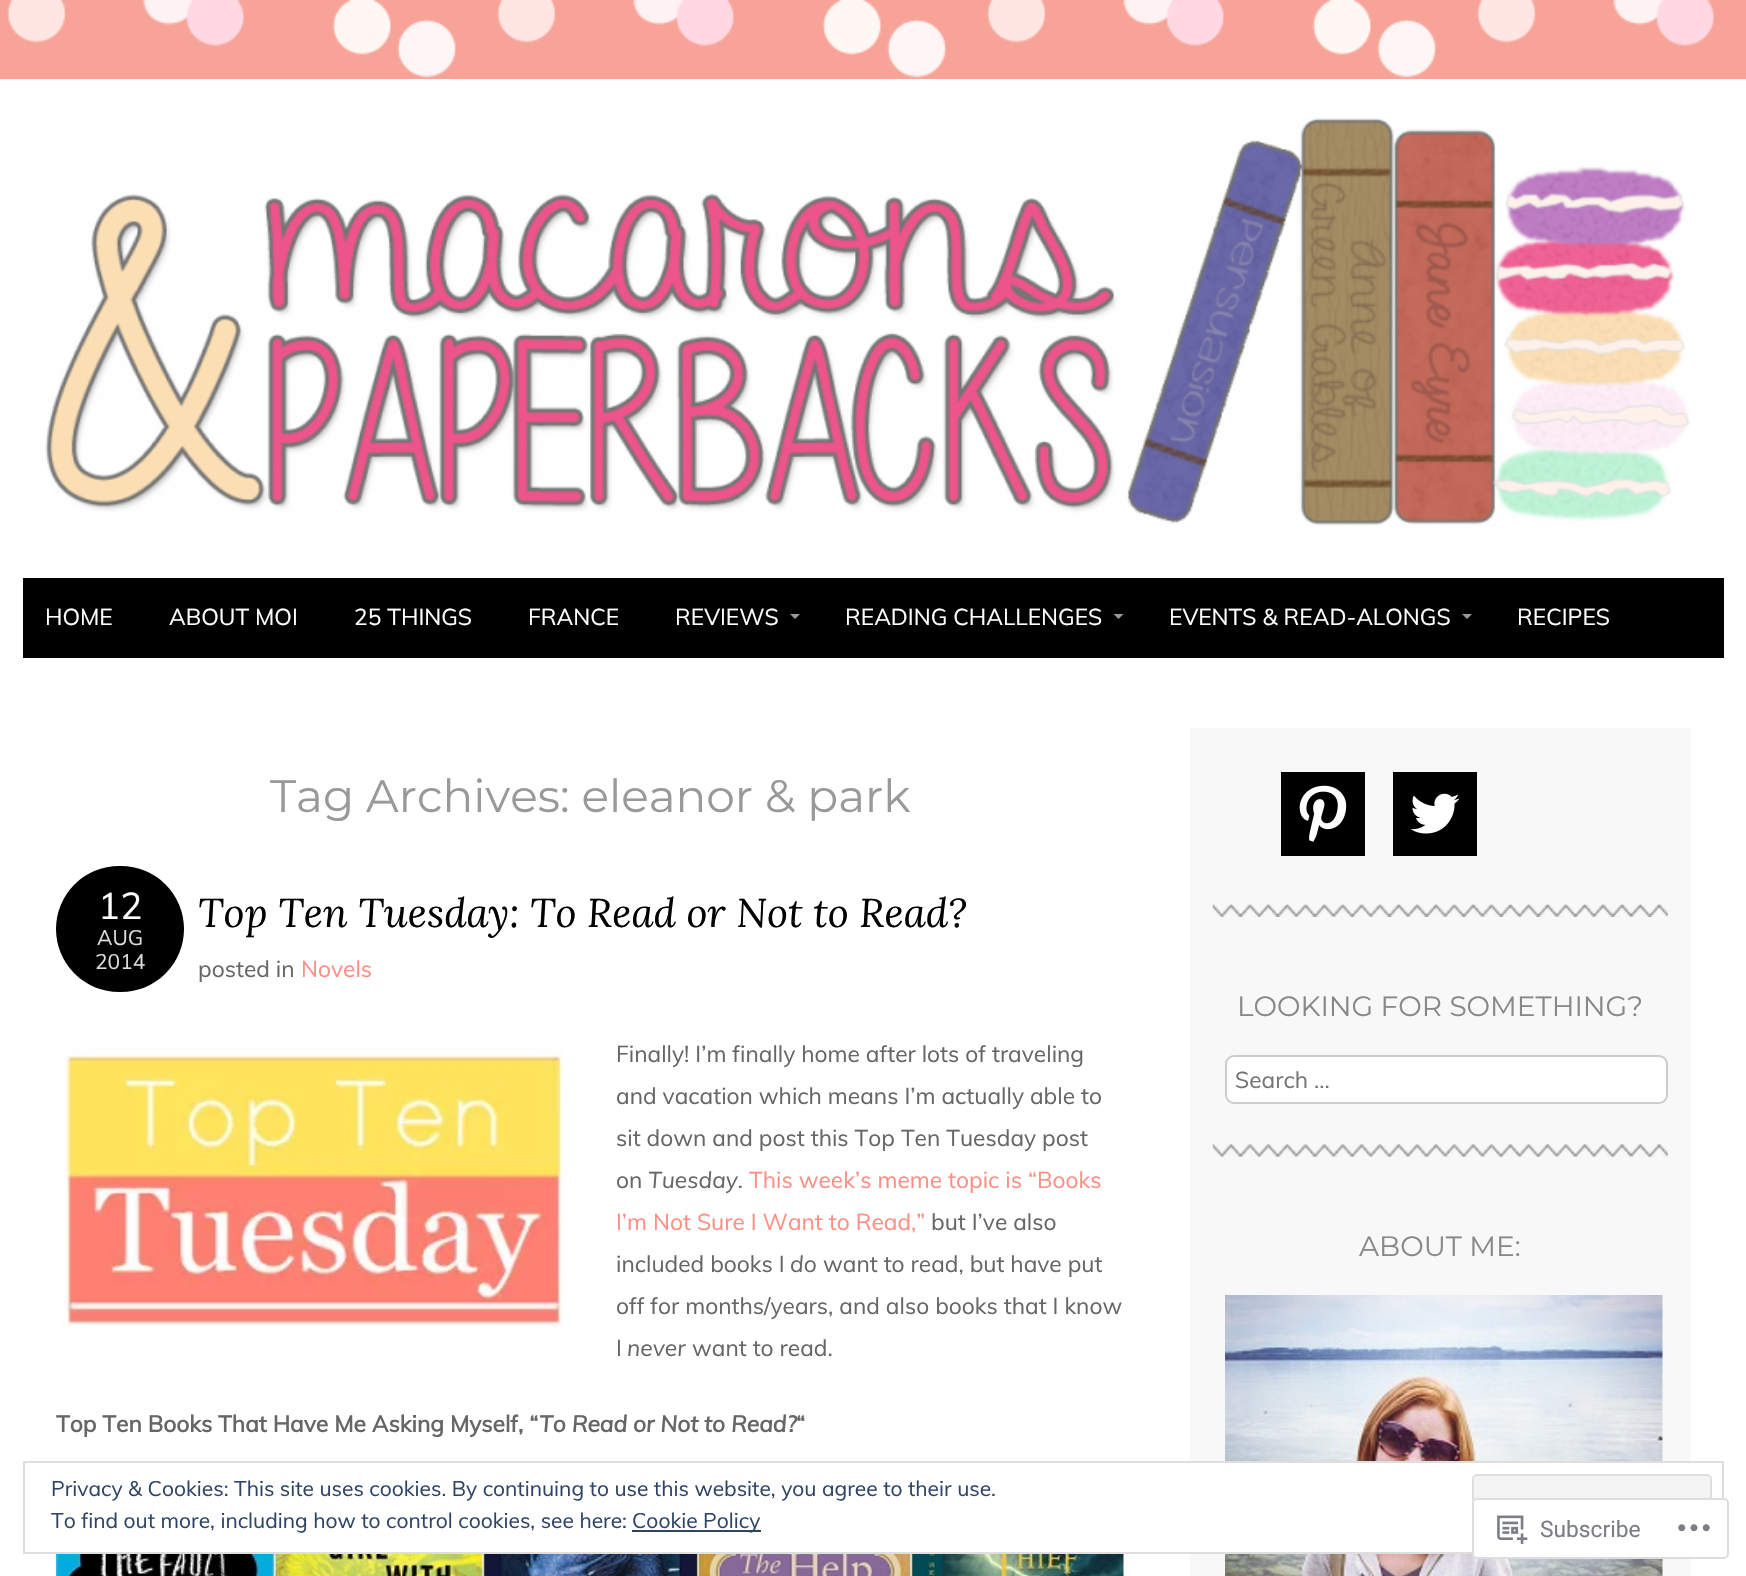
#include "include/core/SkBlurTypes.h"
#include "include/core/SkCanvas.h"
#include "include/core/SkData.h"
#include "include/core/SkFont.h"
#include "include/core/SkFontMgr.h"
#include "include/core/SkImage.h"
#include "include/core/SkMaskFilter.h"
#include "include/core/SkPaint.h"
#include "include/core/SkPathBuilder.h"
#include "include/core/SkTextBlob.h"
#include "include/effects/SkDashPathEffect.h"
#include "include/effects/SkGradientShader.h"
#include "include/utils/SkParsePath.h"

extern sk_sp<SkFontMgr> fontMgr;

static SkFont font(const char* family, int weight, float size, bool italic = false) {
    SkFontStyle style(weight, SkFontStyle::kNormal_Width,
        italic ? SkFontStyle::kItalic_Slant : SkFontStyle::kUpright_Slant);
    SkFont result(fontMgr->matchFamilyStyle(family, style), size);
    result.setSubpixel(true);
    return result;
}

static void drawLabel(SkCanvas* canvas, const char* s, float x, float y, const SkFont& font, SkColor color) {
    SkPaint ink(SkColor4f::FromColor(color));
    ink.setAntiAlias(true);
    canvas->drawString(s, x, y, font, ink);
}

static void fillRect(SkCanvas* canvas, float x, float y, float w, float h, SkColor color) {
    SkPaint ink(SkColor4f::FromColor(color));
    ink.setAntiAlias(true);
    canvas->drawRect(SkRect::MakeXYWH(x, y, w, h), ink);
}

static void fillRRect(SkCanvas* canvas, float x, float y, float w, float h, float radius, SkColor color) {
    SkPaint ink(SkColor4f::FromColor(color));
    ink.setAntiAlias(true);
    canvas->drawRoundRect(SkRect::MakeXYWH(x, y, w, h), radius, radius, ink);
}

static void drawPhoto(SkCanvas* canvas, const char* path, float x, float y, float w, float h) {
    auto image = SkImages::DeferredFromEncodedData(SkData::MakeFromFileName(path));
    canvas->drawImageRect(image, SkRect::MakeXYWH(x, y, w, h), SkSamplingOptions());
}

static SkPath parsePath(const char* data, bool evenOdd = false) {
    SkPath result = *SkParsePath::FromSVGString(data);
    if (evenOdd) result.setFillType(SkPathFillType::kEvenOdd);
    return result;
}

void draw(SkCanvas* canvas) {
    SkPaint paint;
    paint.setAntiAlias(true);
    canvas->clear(0xFFF7A398);
    drawPhoto(canvas, "assets/img1.png", 7, 0, 1708, 78);
    fillRect(canvas, 0, 79, 1746, 1497, 0xFFFFFFFF);
    drawPhoto(canvas, "assets/img2.png", 45, 118, 1645, 408);
    fillRect(canvas, 23, 578, 1701, 80, 0xFF000000);
    SkFont font1 = font("Muli", 400, 22.75f);
    drawLabel(canvas, "HOME", 45, 625, font1, 0xFFFFFFFF);
    drawLabel(canvas, "ABOUT MOI", 169, 625, font1, 0xFFFFFFFF);
    drawLabel(canvas, "25 THINGS", 354, 625, font1, 0xFFFFFFFF);
    drawLabel(canvas, "FRANCE", 528, 625, font1, 0xFFFFFFFF);
    drawLabel(canvas, "REVIEWS", 675, 625, font1, 0xFFFFFFFF);
    paint.setColor(0xFF999999);
    canvas->drawPath(parsePath("M790 614H800L795 619Z"), paint);
    drawLabel(canvas, "READING CHALLENGES", 845, 625, font1, 0xFFFFFFFF);
    canvas->drawPath(parsePath("M1113.5 614H1123.5L1118.5 619Z"), paint);
    drawLabel(canvas, "EVENTS & READ-ALONGS", 1169, 625, font1, 0xFFFFFFFF);
    canvas->drawPath(parsePath("M1462 614H1472L1467 619Z"), paint);
    drawLabel(canvas, "RECIPES", 1517, 625, font1, 0xFFFFFFFF);
    SkFont font2 = font("Montserrat", 400, 45.5f);
    drawLabel(canvas, "Tag Archives: eleanor & park", 270, 812, font2, 0xFF999999);
    fillRRect(canvas, 56, 866, 128, 126, 63, 0xFF000000);
    SkFont font3 = font("Muli", 400, 37);
    drawLabel(canvas, "12", 98, 919, font3, 0xFFFFFFFF);
    SkFont font4 = font("Muli", 400, 21);
    drawLabel(canvas, "AUG", 97, 945, font4, 0xFFDDDDDD);
    drawLabel(canvas, "2014", 95, 969, font4, 0xFFDDDDDD);
    SkFont font5 = font("Lora", 400, 40.25f, true);
    drawLabel(canvas, "Top Ten Tuesday: To Read or Not to Read?", 198, 927, font5, 0xFF000000);
    drawLabel(canvas, "posted in", 198, 977, font1, 0xFF666666);
    drawLabel(canvas, "Novels", 301, 977, font1, 0xFFFF8F85);
    drawPhoto(canvas, "assets/img3.png", 63, 1047, 500, 280);
    drawLabel(canvas, "Finally! I’m finally home after lots of traveling", 616, 1062, font1, 0xFF666666);
    drawLabel(canvas, "and vacation which means I’m actually able to", 616, 1104, font1, 0xFF666666);
    drawLabel(canvas, "sit down and post this Top Ten Tuesday post", 616, 1146, font1, 0xFF666666);
    drawLabel(canvas, "on", 616, 1188, font1, 0xFF666666);
    SkFont font6 = font("Muli", 400, 22.75f, true);
    drawLabel(canvas, "Tuesday.", 648, 1188, font6, 0xFF666666);
    drawLabel(canvas, "This week’s meme topic is “Books", 749, 1188, font1, 0xFFFF8F85);
    drawLabel(canvas, "I’m Not Sure I Want to Read,”", 616, 1230, font1, 0xFFFF8F85);
    drawLabel(canvas, "but I’ve also", 931, 1230, font1, 0xFF666666);
    drawLabel(canvas, "included books I", 616, 1272, font1, 0xFF666666);
    drawLabel(canvas, "do", 790, 1272, font6, 0xFF666666);
    drawLabel(canvas, "want to read, but have put", 823, 1272, font1, 0xFF666666);
    drawLabel(canvas, "off for months/years, and also books that I know", 616, 1314, font1, 0xFF666666);
    drawLabel(canvas, "I", 616, 1356, font1, 0xFF666666);
    drawLabel(canvas, "never", 627, 1356, font6, 0xFF666666);
    drawLabel(canvas, "want to read.", 692, 1356, font1, 0xFF666666);
    SkFont font7 = font("Muli", 700, 22.75f);
    drawLabel(canvas, "Top Ten Books That Have Me Asking Myself, “", 56, 1432, font7, 0xFF666666);
    SkFont font8 = font("Muli", 700, 22.75f, true);
    drawLabel(canvas, "To Read or Not to Read?", 539, 1432, font8, 0xFF666666);
    drawLabel(canvas, "“", 796, 1432, font7, 0xFF666666);
    drawPhoto(canvas, "assets/img4.png", 56, 1554, 1068, 22);
    fillRect(canvas, 1190, 728, 501, 848, 0xFFF8F8F8);
    drawPhoto(canvas, "assets/img5.png", 1212, 904, 456, 13);
    fillRect(canvas, 1281, 772, 84, 84, 0xFF000000);
    drawPhoto(canvas, "assets/img6.png", 1299, 785, 48, 57);
    fillRect(canvas, 1393, 772, 84, 84, 0xFF000000);
    drawPhoto(canvas, "assets/img7.png", 1410, 793, 50, 41);
    drawPhoto(canvas, "assets/img8.png", 1212, 1144, 456, 13);
    SkFont font9 = font("Montserrat", 400, 28);
    drawLabel(canvas, "LOOKING FOR SOMETHING?", 1237, 1016, font9, 0xFF888888);
    paint.setColor(0xFFFFFFFF);
    canvas->drawRoundRect(SkRect::MakeXYWH(1226, 1056, 441, 47), 8, 8, paint);
    paint.setStroke(true);
    paint.setStrokeWidth(2);
    paint.setColor(0xFFCCCCCC);
    canvas->drawRoundRect(SkRect::MakeXYWH(1226, 1056, 441, 47), 8, 8, paint);
    drawLabel(canvas, "Search …", 1235, 1088, font1, 0xFF757575);
    drawLabel(canvas, "ABOUT ME:", 1359, 1256, font9, 0xFF888888);
    drawPhoto(canvas, "assets/img9.png", 1225, 1295, 438, 281);
    fillRect(canvas, 1190, 1463, 501, 89, 0xFFFFFFFF);
    paint.setColor(0xFFDEDEDE);
    canvas->drawRect(SkRect::MakeXYWH(24, 1462, 1699, 91), paint);
    drawLabel(canvas, "Privacy & Cookies: This site uses cookies. By continuing to use this website, you agree to their use.", 51, 1496, font4, 0xFF2E4467);
    paint.setStroke(false);
    paint.setColor(0xFFF3F3F3);
    canvas->drawRoundRect(SkRect::MakeXYWH(1473, 1475, 238, 66), 4, 4, paint);
    paint.setStroke(true);
    paint.setColor(0xFFDEDEDE);
    canvas->drawRoundRect(SkRect::MakeXYWH(1473, 1475, 238, 66), 4, 4, paint);
    drawLabel(canvas, "To find out more, including how to control cookies, see here:", 51, 1528, font4, 0xFF2E4467);
    fillRect(canvas, 632, 1530, 129, 2, 0xFF2E4467);
    drawLabel(canvas, "Cookie Policy", 632, 1528, font4, 0xFF2E4467);
    fillRRect(canvas, 1472, 1498, 257, 61, 5, 0xFAFFFFFF);
    paint.setColor(0xFADCDCDE);
    canvas->drawRoundRect(SkRect::MakeXYWH(1473, 1499, 255, 59), 4, 4, paint);
    drawPhoto(canvas, "assets/img10.png", 1497, 1515, 31, 29);
    SkFont font10 = font("Roboto", 400, 22.75f);
    drawLabel(canvas, "Subscribe", 1540, 1537, font10, 0xFF7A7E84);
    drawPhoto(canvas, "assets/img11.png", 1678, 1524, 32, 8);
}
